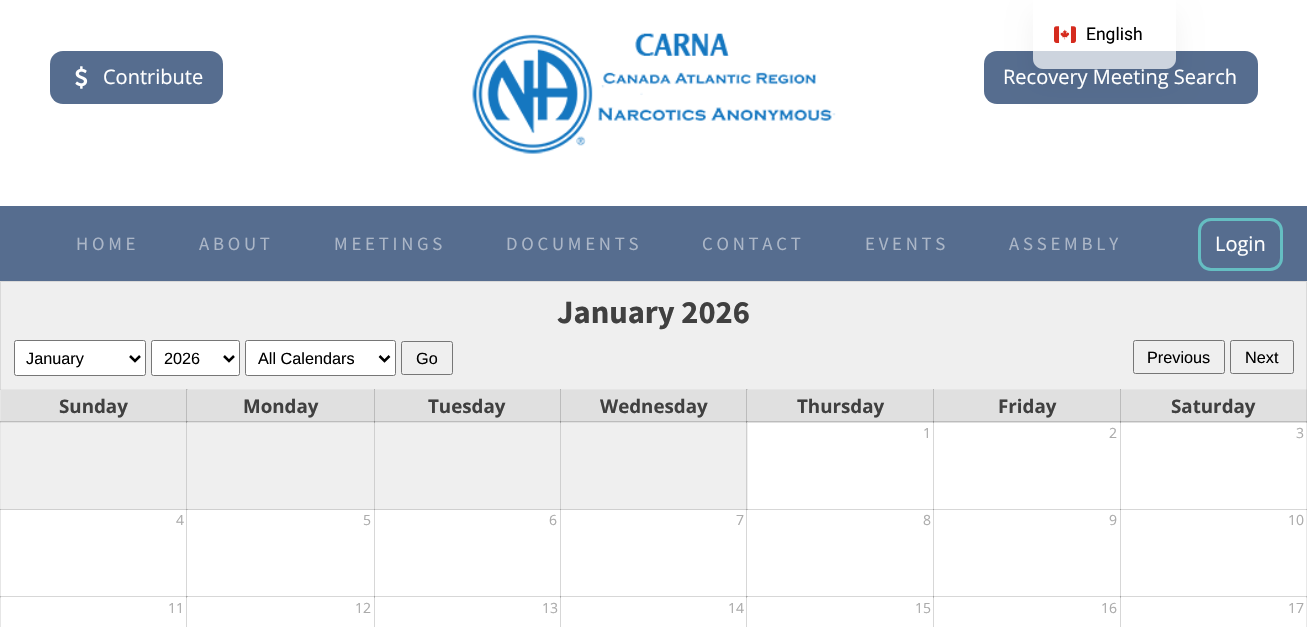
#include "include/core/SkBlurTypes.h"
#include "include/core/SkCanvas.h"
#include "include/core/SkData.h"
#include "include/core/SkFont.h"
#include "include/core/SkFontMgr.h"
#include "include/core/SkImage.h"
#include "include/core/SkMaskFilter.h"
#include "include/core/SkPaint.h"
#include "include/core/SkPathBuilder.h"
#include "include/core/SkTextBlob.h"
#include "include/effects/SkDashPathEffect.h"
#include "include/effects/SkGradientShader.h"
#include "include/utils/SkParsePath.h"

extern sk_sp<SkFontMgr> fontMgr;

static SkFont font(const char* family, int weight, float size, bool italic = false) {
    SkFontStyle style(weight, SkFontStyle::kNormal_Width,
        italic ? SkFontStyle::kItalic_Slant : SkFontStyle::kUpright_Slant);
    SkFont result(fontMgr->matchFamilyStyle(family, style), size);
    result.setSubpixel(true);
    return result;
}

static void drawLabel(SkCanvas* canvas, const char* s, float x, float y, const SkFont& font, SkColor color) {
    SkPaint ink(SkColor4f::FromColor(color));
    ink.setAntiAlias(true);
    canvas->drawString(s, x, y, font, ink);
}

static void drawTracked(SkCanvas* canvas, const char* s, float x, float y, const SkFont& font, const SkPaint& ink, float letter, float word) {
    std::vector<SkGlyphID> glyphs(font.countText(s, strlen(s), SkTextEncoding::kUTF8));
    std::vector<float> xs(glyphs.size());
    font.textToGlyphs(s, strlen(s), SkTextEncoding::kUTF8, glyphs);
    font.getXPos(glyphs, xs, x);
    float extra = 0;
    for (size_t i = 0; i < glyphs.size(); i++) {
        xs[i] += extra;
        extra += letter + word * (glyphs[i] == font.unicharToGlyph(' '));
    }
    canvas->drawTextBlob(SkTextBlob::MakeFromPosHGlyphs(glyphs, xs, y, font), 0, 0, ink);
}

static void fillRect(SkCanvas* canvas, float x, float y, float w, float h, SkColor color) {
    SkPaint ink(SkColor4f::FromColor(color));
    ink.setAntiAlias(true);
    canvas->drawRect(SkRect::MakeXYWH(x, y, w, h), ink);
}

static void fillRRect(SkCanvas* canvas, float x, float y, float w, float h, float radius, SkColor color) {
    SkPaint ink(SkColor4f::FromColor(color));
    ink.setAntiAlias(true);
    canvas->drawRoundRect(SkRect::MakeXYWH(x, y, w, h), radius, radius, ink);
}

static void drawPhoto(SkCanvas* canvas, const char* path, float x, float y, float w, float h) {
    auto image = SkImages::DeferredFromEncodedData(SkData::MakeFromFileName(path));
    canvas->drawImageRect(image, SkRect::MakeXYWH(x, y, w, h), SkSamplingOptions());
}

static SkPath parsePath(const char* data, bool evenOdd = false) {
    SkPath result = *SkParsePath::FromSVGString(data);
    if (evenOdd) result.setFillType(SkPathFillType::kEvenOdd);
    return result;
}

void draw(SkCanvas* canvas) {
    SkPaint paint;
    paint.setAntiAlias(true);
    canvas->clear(0xFFFFFFFF);
    fillRect(canvas, 561, 423, 187, 86, 0xFFEFEFEF);
    fillRect(canvas, 375, 423, 185, 86, 0xFFEFEFEF);
    fillRect(canvas, 1, 423, 373, 86, 0xFFEFEFEF);
    fillRect(canvas, 1121, 390, 185, 33, 0xFFE0E0E0);
    fillRect(canvas, 934, 390, 186, 33, 0xFFE0E0E0);
    fillRect(canvas, 561, 390, 372, 33, 0xFFE0E0E0);
    fillRect(canvas, 375, 390, 185, 33, 0xFFE0E0E0);
    fillRect(canvas, 1, 390, 373, 33, 0xFFE0E0E0);
    fillRect(canvas, 0, 389, 1, 238, 0xFFE6E6E6);
    fillRect(canvas, 0, 389, 1307, 1, 0xFFE6E6E6);
    fillRect(canvas, 0, 389, 1, 1, 0xFFD2D2D2);
    fillRect(canvas, 186, 390, 1, 33, 0xFFBCBCBC);
    fillRect(canvas, 186, 389, 2, 1, 0xFFD2D2D2);
    fillRect(canvas, 186, 389, 1, 1, 0xFFB5B5B5);
    fillRect(canvas, 374, 390, 1, 33, 0xFFBCBCBC);
    fillRect(canvas, 374, 389, 1, 1, 0xFFB5B5B5);
    fillRect(canvas, 560, 390, 1, 33, 0xFFBCBCBC);
    fillRect(canvas, 560, 389, 1, 1, 0xFFB5B5B5);
    fillRect(canvas, 746, 390, 1, 33, 0xFFBCBCBC);
    fillRect(canvas, 746, 389, 2, 1, 0xFFD2D2D2);
    fillRect(canvas, 746, 389, 1, 1, 0xFFB5B5B5);
    fillRect(canvas, 933, 390, 1, 33, 0xFFBCBCBC);
    fillRect(canvas, 933, 389, 1, 1, 0xFFB5B5B5);
    fillRect(canvas, 1120, 390, 1, 33, 0xFFBCBCBC);
    fillRect(canvas, 1306, 390, 1, 33, 0xFFCCCCCC);
    fillRect(canvas, 0, 421, 1, 2, 0xFFD2D2D2);
    fillRect(canvas, 1, 421, 373, 1, 0xFFBCBCBC);
    fillRect(canvas, 0, 421, 1, 1, 0xFFB5B5B5);
    fillRect(canvas, 186, 423, 1, 87, 0xFFCFCFCF);
    fillRect(canvas, 186, 421, 1, 2, 0xFFA5A5A5);
    fillRect(canvas, 186, 421, 2, 1, 0xFFA5A5A5);
    fillRect(canvas, 186, 421, 1, 1, 0xFF8D8D8D);
    fillRect(canvas, 374, 423, 1, 87, 0xFFCFCFCF);
    fillRect(canvas, 374, 421, 1, 2, 0xFFA5A5A5);
    fillRect(canvas, 374, 421, 186, 1, 0xFFBCBCBC);
    fillRect(canvas, 374, 421, 1, 1, 0xFF8D8D8D);
    fillRect(canvas, 560, 423, 1, 87, 0xFFCFCFCF);
    fillRect(canvas, 560, 421, 1, 2, 0xFFA5A5A5);
    fillRect(canvas, 560, 421, 560, 1, 0xFFBCBCBC);
    fillRect(canvas, 560, 421, 1, 1, 0xFF8D8D8D);
    fillRect(canvas, 746, 423, 1, 87, 0xFFCFCFCF);
    fillRect(canvas, 746, 421, 1, 2, 0xFFA5A5A5);
    fillRect(canvas, 746, 421, 2, 1, 0xFFA5A5A5);
    fillRect(canvas, 746, 421, 1, 1, 0xFF8D8D8D);
    fillRect(canvas, 933, 423, 1, 204, 0xFFD7D7D7);
    fillRect(canvas, 933, 421, 1, 2, 0xFFA5A5A5);
    fillRect(canvas, 933, 421, 1, 1, 0xFF8D8D8D);
    fillRect(canvas, 1120, 423, 1, 204, 0xFFD7D7D7);
    fillRect(canvas, 1120, 421, 1, 2, 0xFFA5A5A5);
    fillRect(canvas, 1306, 423, 1, 204, 0xFFE9E9E9);
    fillRect(canvas, 1306, 421, 1, 2, 0xFFBCBCBC);
    fillRect(canvas, 1, 509, 747, 1, 0xFFCFCFCF);
    fillRect(canvas, 0, 509, 1, 1, 0xFFB5B5B5);
    fillRect(canvas, 186, 510, 1, 117, 0xFFD7D7D7);
    fillRect(canvas, 186, 509, 2, 1, 0xFFBBBBBB);
    fillRect(canvas, 186, 509, 1, 1, 0xFFA6A6A6);
    fillRect(canvas, 374, 510, 1, 117, 0xFFD7D7D7);
    fillRect(canvas, 374, 509, 1, 1, 0xFFA6A6A6);
    fillRect(canvas, 560, 510, 1, 117, 0xFFD7D7D7);
    fillRect(canvas, 560, 509, 1, 1, 0xFFA6A6A6);
    fillRect(canvas, 746, 510, 1, 117, 0xFFD7D7D7);
    fillRect(canvas, 748, 509, 559, 1, 0xFFD7D7D7);
    fillRect(canvas, 746, 509, 2, 1, 0xFFBBBBBB);
    fillRect(canvas, 746, 509, 1, 1, 0xFFA6A6A6);
    fillRect(canvas, 933, 509, 1, 1, 0xFFA1A1A1);
    fillRect(canvas, 0, 596, 1, 2, 0xFFD2D2D2);
    fillRect(canvas, 1, 596, 373, 1, 0xFFD7D7D7);
    fillRect(canvas, 0, 596, 1, 1, 0xFFB5B5B5);
    fillRect(canvas, 186, 596, 1, 2, 0xFFBCBCBC);
    fillRect(canvas, 186, 596, 2, 1, 0xFFBCBCBC);
    fillRect(canvas, 186, 596, 1, 1, 0xFFA1A1A1);
    fillRect(canvas, 374, 596, 1, 2, 0xFFBCBCBC);
    fillRect(canvas, 374, 596, 186, 1, 0xFFD7D7D7);
    fillRect(canvas, 374, 596, 1, 1, 0xFFA1A1A1);
    fillRect(canvas, 560, 596, 1, 2, 0xFFBCBCBC);
    fillRect(canvas, 560, 596, 560, 1, 0xFFD7D7D7);
    fillRect(canvas, 560, 596, 1, 1, 0xFFA1A1A1);
    fillRect(canvas, 746, 596, 1, 2, 0xFFBCBCBC);
    fillRect(canvas, 746, 596, 2, 1, 0xFFBCBCBC);
    fillRect(canvas, 746, 596, 1, 1, 0xFFA1A1A1);
    fillRect(canvas, 933, 596, 1, 2, 0xFFBCBCBC);
    fillRect(canvas, 933, 596, 1, 1, 0xFFA1A1A1);
    fillRect(canvas, 1120, 596, 1, 2, 0xFFBCBCBC);
    fillRect(canvas, 1306, 596, 1, 2, 0xFFD7D7D7);
    fillRRect(canvas, 984, 51, 274, 53, 13, 0xFF566D8F);
    canvas->save();
    canvas->clipPath(parsePath("M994 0H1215V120H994ZM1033 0H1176V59C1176 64.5 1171.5 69 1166 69H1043C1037.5 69 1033 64.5 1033 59Z", true), true);
    paint.setColor(0x0D000000);
    paint.setMaskFilter(SkMaskFilter::MakeBlur(kNormal_SkBlurStyle, 12.5f));
    canvas->drawRoundRect(SkRect::MakeXYWH(1033, 13, 143, 68), 10, 10, paint);
    paint.setMaskFilter(nullptr);
    canvas->restore();
    SkFont font1 = font("Open Sans", 400, 20);
    drawLabel(canvas, "Recovery Meeting Search", 1003, 84, font1, 0xFFFFFFFF);
    paint.setColor(0xB3FFFFFF);
    canvas->drawPath(parsePath("M1033 0H1176V59C1176 64.5 1171.5 69 1166 69H1043C1037.5 69 1033 64.5 1033 59Z"), paint);
    drawPhoto(canvas, "assets/img1.png", 1054, 26, 22, 17);
    SkFont font2 = font("Roboto", 400, 17.5f);
    drawLabel(canvas, "English", 1086, 40, font2, 0xFF000000);
    fillRRect(canvas, 50, 51, 173, 53, 13, 0xFF566D8F);
    drawPhoto(canvas, "assets/img2.png", 75, 66, 13, 23);
    drawLabel(canvas, "Contribute", 103, 84, font1, 0xFFFFFFFF);
    drawPhoto(canvas, "assets/img3.png", 472, 33, 364, 121);
    fillRect(canvas, 0, 206, 1307, 75, 0xFF566D8F);
    SkFont font3 = font("Source Sans Pro", 400, 18.75f);
    paint.setColor(0xFFABB6C7);
    drawTracked(canvas, "HOME", 76, 250, font3, paint, 3.75f, 0);
    drawTracked(canvas, "ABOUT", 199, 250, font3, paint, 3.75f, 0);
    drawTracked(canvas, "MEETINGS", 334, 250, font3, paint, 3.75f, 0);
    drawTracked(canvas, "DOCUMENTS", 506, 250, font3, paint, 3.75f, 0);
    drawTracked(canvas, "CONTACT", 702, 250, font3, paint, 3.75f, 0);
    drawTracked(canvas, "EVENTS", 865, 250, font3, paint, 3.75f, 0);
    drawTracked(canvas, "ASSEMBLY", 1009, 250, font3, paint, 3.75f, 0);
    paint.setStroke(true);
    paint.setStrokeWidth(3);
    paint.setColor(0xFF65BEC2);
    canvas->drawRoundRect(SkRect::MakeXYWH(1199.5f, 219.5f, 82, 50), 11.5f, 11.5f, paint);
    drawLabel(canvas, "Login", 1215, 251, font1, 0xFFFFFFFF);
    fillRect(canvas, 0, 281, 1307, 108, 0xFFEFEFEF);
    paint.setStroke(false);
    paint.setColor(0xFFD9D9D9);
    canvas->drawPath(parsePath("M0 281H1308L1306 282H1Z"), paint);
    canvas->drawPath(parsePath("M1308 281V389H1306V282Z"), paint);
    paint.setColor(0x33828282);
    canvas->drawPath(parsePath("M0 389V281L1 282V389Z"), paint);
    SkFont font4 = font("Source Sans Pro", 700, 32.5f);
    drawLabel(canvas, "January 2026", 557, 323, font4, 0xFF404040);
    paint.setColor(0xFFFFFFFF);
    canvas->drawRoundRect(SkRect::MakeXYWH(14.5f, 340.5f, 131, 35), 2, 2, paint);
    paint.setStroke(true);
    paint.setStrokeWidth(1);
    paint.setColor(0xFF767676);
    canvas->drawRoundRect(SkRect::MakeXYWH(14.5f, 340.5f, 131, 35), 2, 2, paint);
    paint.setStrokeWidth(2.5f);
    paint.setColor(0xFF000000);
    canvas->drawPath(parsePath("M130 356L135 361L140 356"), paint);
    SkFont font5 = font("Liberation Sans", 400, 16.25f);
    drawLabel(canvas, "January", 26, 364, font5, 0xFF000000);
    paint.setStroke(false);
    paint.setColor(0xFFFFFFFF);
    canvas->drawRoundRect(SkRect::MakeXYWH(151.5f, 340.5f, 88, 35), 2, 2, paint);
    paint.setStroke(true);
    paint.setStrokeWidth(1);
    paint.setColor(0xFF767676);
    canvas->drawRoundRect(SkRect::MakeXYWH(151.5f, 340.5f, 88, 35), 2, 2, paint);
    paint.setStrokeWidth(2.5f);
    paint.setColor(0xFF000000);
    canvas->drawPath(parsePath("M224 356L229 361L234 356"), paint);
    drawLabel(canvas, "2026", 164, 364, font5, 0xFF000000);
    paint.setStroke(false);
    paint.setColor(0xFFFFFFFF);
    canvas->drawRoundRect(SkRect::MakeXYWH(245.5f, 340.5f, 150, 35), 2, 2, paint);
    paint.setStroke(true);
    paint.setStrokeWidth(1);
    paint.setColor(0xFF767676);
    canvas->drawRoundRect(SkRect::MakeXYWH(245.5f, 340.5f, 150, 35), 2, 2, paint);
    paint.setStrokeWidth(2.5f);
    paint.setColor(0xFF000000);
    canvas->drawPath(parsePath("M379.5 356L384.5 361L389.5 356"), paint);
    drawLabel(canvas, "All Calendars", 258, 364, font5, 0xFF000000);
    paint.setStrokeWidth(1);
    paint.setColor(0xFF767676);
    canvas->drawRoundRect(SkRect::MakeXYWH(401.5f, 341.5f, 51, 33), 2, 2, paint);
    drawLabel(canvas, "Go", 416, 364, font5, 0xFF000000);
    canvas->drawRoundRect(SkRect::MakeXYWH(1133.5f, 340.5f, 91, 33), 2, 2, paint);
    drawLabel(canvas, "Previous", 1147, 363, font5, 0xFF000000);
    canvas->drawRoundRect(SkRect::MakeXYWH(1230.5f, 340.5f, 63, 33), 2, 2, paint);
    drawLabel(canvas, "Next", 1245, 363, font5, 0xFF000000);
    SkFont font6 = font("Open Sans", 700, 18.75f);
    drawLabel(canvas, "Sunday", 59, 413, font6, 0xFF404040);
    drawLabel(canvas, "Monday", 243, 413, font6, 0xFF404040);
    drawLabel(canvas, "Tuesday", 428, 413, font6, 0xFF404040);
    drawLabel(canvas, "Wednesday", 600, 413, font6, 0xFF404040);
    drawLabel(canvas, "Thursday", 797, 413, font6, 0xFF404040);
    drawLabel(canvas, "Friday", 998, 413, font6, 0xFF404040);
    fillRect(canvas, 1120, 389, 1, 1, 0xFFB5B5B5);
    fillRect(canvas, 1306, 389, 1, 1, 0xFFD2D2D2);
    drawLabel(canvas, "Saturday", 1171, 413, font6, 0xFF404040);
    SkFont font7 = font("Open Sans", 400, 14);
    drawLabel(canvas, "1", 923, 438, font7, 0xFFABABAB);
    drawLabel(canvas, "2", 1109, 438, font7, 0xFFABABAB);
    fillRect(canvas, 1120, 421, 187, 1, 0xFFBCBCBC);
    fillRect(canvas, 1120, 421, 1, 1, 0xFF8D8D8D);
    fillRect(canvas, 1306, 421, 1, 1, 0xFFA5A5A5);
    drawLabel(canvas, "3", 1296, 438, font7, 0xFFABABAB);
    drawLabel(canvas, "4", 176, 525, font7, 0xFFABABAB);
    drawLabel(canvas, "5", 363, 525, font7, 0xFFABABAB);
    drawLabel(canvas, "6", 549, 525, font7, 0xFFABABAB);
    drawLabel(canvas, "7", 736, 525, font7, 0xFFABABAB);
    drawLabel(canvas, "8", 923, 525, font7, 0xFFABABAB);
    drawLabel(canvas, "9", 1109, 525, font7, 0xFFABABAB);
    fillRect(canvas, 1120, 509, 1, 1, 0xFFA1A1A1);
    fillRect(canvas, 1306, 509, 1, 1, 0xFFBCBCBC);
    drawLabel(canvas, "10", 1288, 525, font7, 0xFFABABAB);
    drawLabel(canvas, "11", 168, 613, font7, 0xFFABABAB);
    drawLabel(canvas, "12", 355, 613, font7, 0xFFABABAB);
    drawLabel(canvas, "13", 542, 613, font7, 0xFFABABAB);
    drawLabel(canvas, "14", 728, 613, font7, 0xFFABABAB);
    drawLabel(canvas, "15", 915, 613, font7, 0xFFABABAB);
    drawLabel(canvas, "16", 1101, 613, font7, 0xFFABABAB);
    fillRect(canvas, 1120, 596, 187, 1, 0xFFD7D7D7);
    fillRect(canvas, 1120, 596, 1, 1, 0xFFA1A1A1);
    fillRect(canvas, 1306, 596, 1, 1, 0xFFBCBCBC);
    drawLabel(canvas, "17", 1288, 613, font7, 0xFFABABAB);
}
